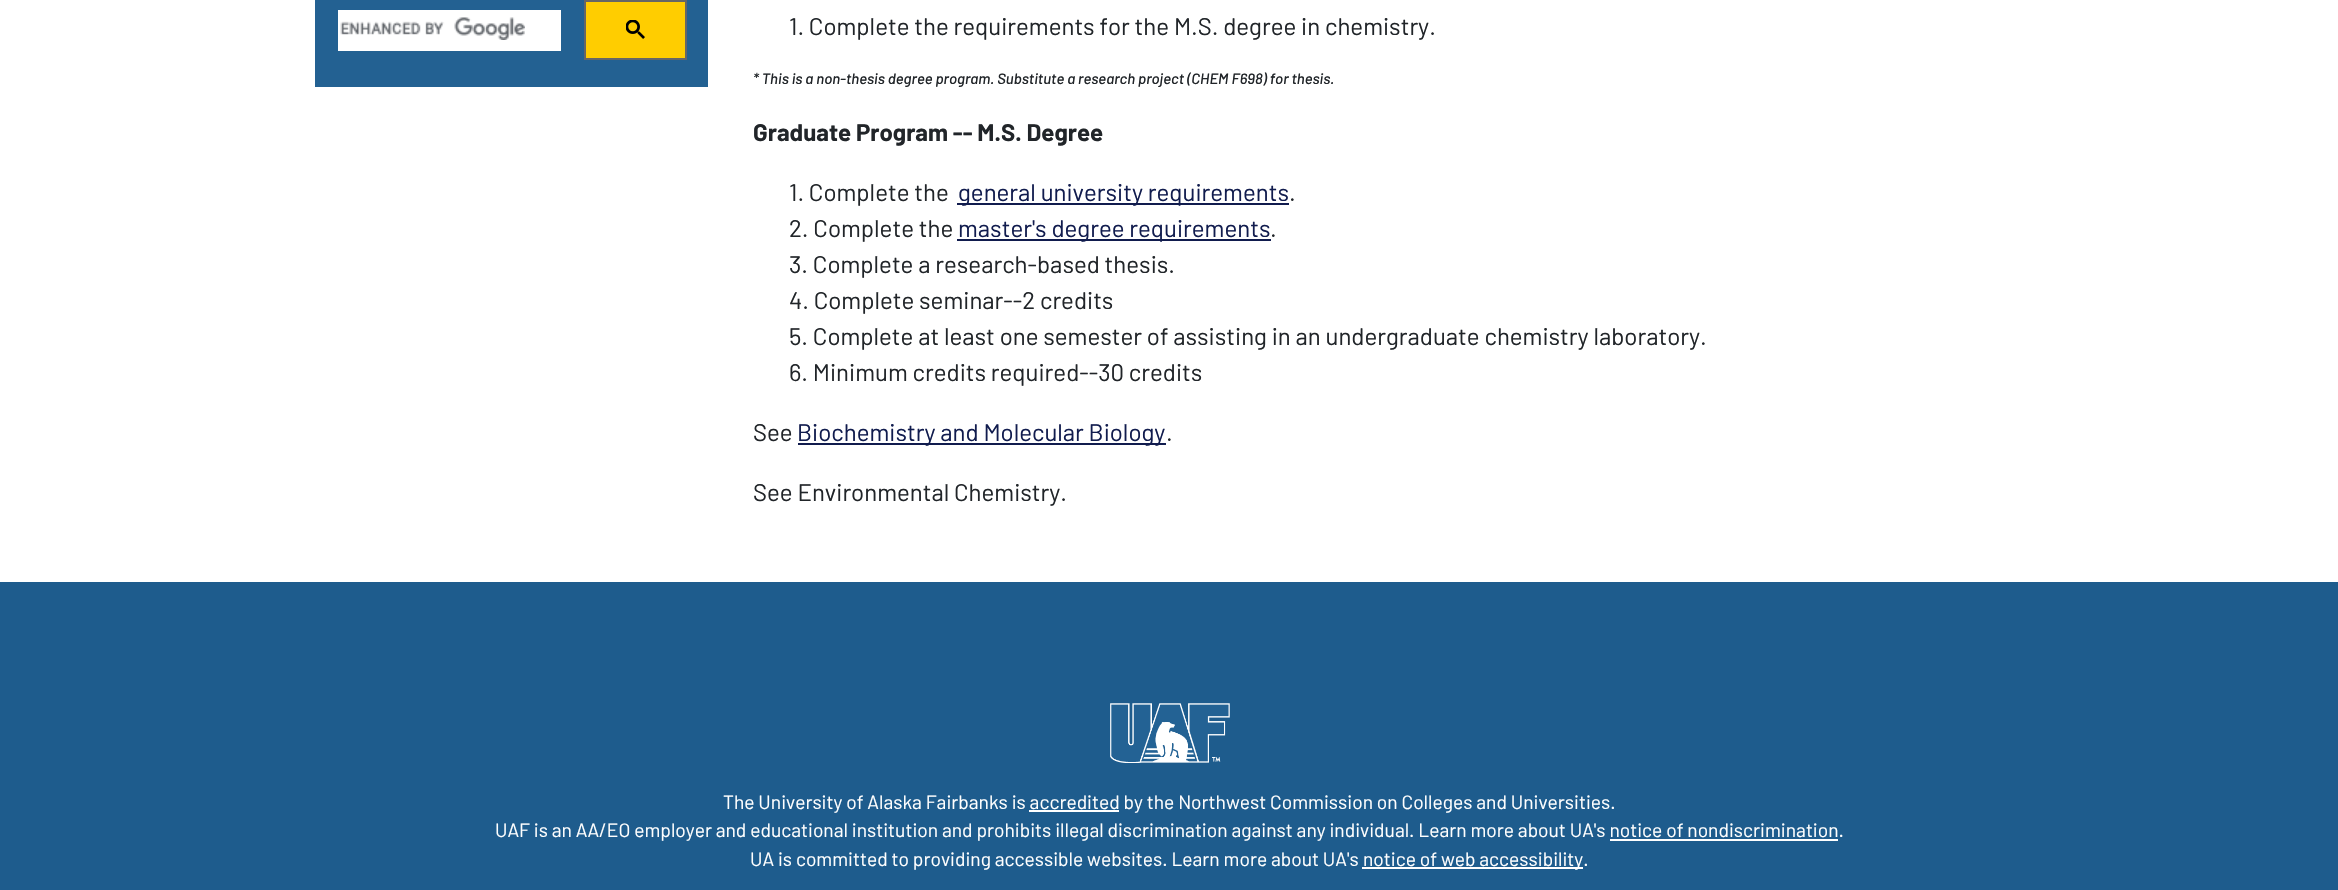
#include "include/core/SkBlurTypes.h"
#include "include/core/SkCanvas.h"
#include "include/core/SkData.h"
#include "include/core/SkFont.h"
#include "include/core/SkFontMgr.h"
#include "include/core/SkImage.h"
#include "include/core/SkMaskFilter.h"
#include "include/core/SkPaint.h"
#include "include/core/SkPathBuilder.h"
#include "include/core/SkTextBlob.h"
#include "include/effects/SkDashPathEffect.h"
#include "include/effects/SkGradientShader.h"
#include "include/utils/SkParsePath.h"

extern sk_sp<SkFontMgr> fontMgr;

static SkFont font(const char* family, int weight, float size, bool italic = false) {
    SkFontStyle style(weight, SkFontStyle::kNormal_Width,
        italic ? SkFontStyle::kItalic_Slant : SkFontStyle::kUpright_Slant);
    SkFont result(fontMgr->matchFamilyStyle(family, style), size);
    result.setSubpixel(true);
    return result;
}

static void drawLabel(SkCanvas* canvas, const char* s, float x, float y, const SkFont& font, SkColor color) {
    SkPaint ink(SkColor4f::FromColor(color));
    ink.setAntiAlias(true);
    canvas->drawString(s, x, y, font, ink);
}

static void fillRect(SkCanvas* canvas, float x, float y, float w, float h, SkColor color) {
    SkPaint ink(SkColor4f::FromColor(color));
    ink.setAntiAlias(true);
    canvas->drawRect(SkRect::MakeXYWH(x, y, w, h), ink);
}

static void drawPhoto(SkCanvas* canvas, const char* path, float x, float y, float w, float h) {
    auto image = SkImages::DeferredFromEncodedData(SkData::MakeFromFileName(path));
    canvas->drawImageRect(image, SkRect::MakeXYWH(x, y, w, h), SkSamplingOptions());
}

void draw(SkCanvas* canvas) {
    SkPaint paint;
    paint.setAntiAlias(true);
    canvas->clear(0xFFFFFFFF);
    fillRect(canvas, 315, 0, 393, 87, 0xFF236192);
    fillRect(canvas, 338, 10, 223, 41, 0xFFFFFFFF);
    drawPhoto(canvas, "assets/img1.png", 340, 17, 185, 23);
    paint.setColor(0xFFFFCD00);
    canvas->drawRect(SkRect::MakeXYWH(585, 1, 101, 58), paint);
    paint.setStroke(true);
    paint.setStrokeWidth(2);
    paint.setColor(0xFF666666);
    canvas->drawRect(SkRect::MakeXYWH(585, 1, 101, 58), paint);
    drawPhoto(canvas, "assets/img2.png", 626, 20, 19, 19);
    SkFont font1 = font("Barlow", 400, 24);
    drawLabel(canvas, "1. Complete the requirements for the M.S. degree in chemistry.", 789, 35, font1, 0xFF212529);
    SkFont font2 = font("Barlow", 500, 15, true);
    drawLabel(canvas, "* This is a non-thesis degree program. Substitute a research project (CHEM F698) for thesis.", 753, 84, font2, 0xFF212529);
    SkFont font3 = font("Barlow", 700, 24);
    drawLabel(canvas, "Graduate Program -- M.S. Degree", 753, 141, font3, 0xFF212529);
    drawLabel(canvas, "1. Complete the", 789, 201, font1, 0xFF212529);
    fillRect(canvas, 957, 203, 332, 2, 0xFF111C4E);
    drawLabel(canvas, "general university requirements", 958, 201, font1, 0xFF111C4E);
    drawLabel(canvas, ".", 1289, 201, font1, 0xFF212529);
    drawLabel(canvas, "2. Complete the", 789, 237, font1, 0xFF212529);
    fillRect(canvas, 957, 239, 314, 2, 0xFF111C4E);
    drawLabel(canvas, "master's degree requirements", 958, 237, font1, 0xFF111C4E);
    drawLabel(canvas, ".", 1270, 237, font1, 0xFF212529);
    drawLabel(canvas, "3. Complete a research-based thesis.", 789, 273, font1, 0xFF212529);
    drawLabel(canvas, "4. Complete seminar--2 credits", 789, 309, font1, 0xFF212529);
    drawLabel(canvas, "5. Complete at least one semester of assisting in an undergraduate chemistry laboratory.", 789, 345, font1, 0xFF212529);
    drawLabel(canvas, "6. Minimum credits required--30 credits", 789, 381, font1, 0xFF212529);
    drawLabel(canvas, "See", 753, 441, font1, 0xFF212529);
    fillRect(canvas, 798, 443, 368, 2, 0xFF111C4E);
    drawLabel(canvas, "Biochemistry and Molecular Biology", 797, 441, font1, 0xFF111C4E);
    drawLabel(canvas, ".", 1166, 441, font1, 0xFF212529);
    drawLabel(canvas, "See Environmental Chemistry.", 753, 501, font1, 0xFF212529);
    fillRect(canvas, 0, 582, 2338, 308, 0xFF1E5C8D);
    drawPhoto(canvas, "assets/img3.png", 1110, 703, 120, 60);
    SkFont font4 = font("Barlow", 400, 19.2f);
    drawLabel(canvas, "The University of Alaska Fairbanks is accredited by the Northwest Commission on Colleges and Universities.", 723, 809, font4, 0xFFFFFFFF);
    fillRect(canvas, 1029, 810, 90, 2, 0xFFFFFFFF);
    drawLabel(canvas, "UAF is an AA/EO employer and educational institution and prohibits illegal discrimination against any individual. Learn more about UA's notice of nondiscrimination.", 495, 837, font4, 0xFFFFFFFF);
    fillRect(canvas, 1610, 839, 228, 2, 0xFFFFFFFF);
    drawLabel(canvas, "UA is committed to providing accessible websites. Learn more about UA's", 750, 866, font4, 0xFFFFFFFF);
    fillRect(canvas, 1362, 867, 221, 2, 0xFFFFFFFF);
    drawLabel(canvas, "notice of web accessibility.", 1363, 866, font4, 0xFFFFFFFF);
}
